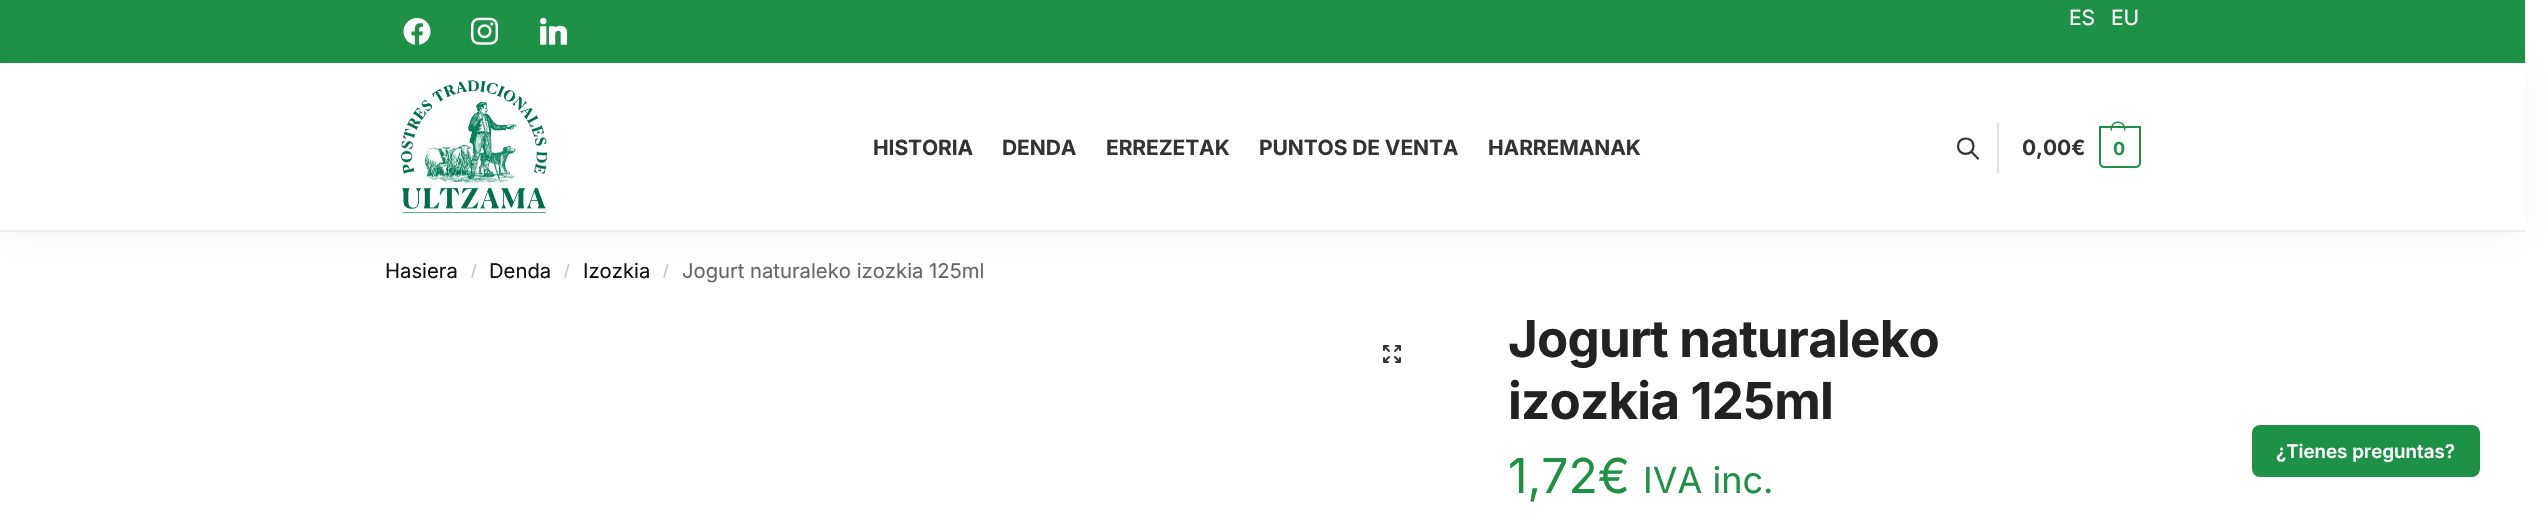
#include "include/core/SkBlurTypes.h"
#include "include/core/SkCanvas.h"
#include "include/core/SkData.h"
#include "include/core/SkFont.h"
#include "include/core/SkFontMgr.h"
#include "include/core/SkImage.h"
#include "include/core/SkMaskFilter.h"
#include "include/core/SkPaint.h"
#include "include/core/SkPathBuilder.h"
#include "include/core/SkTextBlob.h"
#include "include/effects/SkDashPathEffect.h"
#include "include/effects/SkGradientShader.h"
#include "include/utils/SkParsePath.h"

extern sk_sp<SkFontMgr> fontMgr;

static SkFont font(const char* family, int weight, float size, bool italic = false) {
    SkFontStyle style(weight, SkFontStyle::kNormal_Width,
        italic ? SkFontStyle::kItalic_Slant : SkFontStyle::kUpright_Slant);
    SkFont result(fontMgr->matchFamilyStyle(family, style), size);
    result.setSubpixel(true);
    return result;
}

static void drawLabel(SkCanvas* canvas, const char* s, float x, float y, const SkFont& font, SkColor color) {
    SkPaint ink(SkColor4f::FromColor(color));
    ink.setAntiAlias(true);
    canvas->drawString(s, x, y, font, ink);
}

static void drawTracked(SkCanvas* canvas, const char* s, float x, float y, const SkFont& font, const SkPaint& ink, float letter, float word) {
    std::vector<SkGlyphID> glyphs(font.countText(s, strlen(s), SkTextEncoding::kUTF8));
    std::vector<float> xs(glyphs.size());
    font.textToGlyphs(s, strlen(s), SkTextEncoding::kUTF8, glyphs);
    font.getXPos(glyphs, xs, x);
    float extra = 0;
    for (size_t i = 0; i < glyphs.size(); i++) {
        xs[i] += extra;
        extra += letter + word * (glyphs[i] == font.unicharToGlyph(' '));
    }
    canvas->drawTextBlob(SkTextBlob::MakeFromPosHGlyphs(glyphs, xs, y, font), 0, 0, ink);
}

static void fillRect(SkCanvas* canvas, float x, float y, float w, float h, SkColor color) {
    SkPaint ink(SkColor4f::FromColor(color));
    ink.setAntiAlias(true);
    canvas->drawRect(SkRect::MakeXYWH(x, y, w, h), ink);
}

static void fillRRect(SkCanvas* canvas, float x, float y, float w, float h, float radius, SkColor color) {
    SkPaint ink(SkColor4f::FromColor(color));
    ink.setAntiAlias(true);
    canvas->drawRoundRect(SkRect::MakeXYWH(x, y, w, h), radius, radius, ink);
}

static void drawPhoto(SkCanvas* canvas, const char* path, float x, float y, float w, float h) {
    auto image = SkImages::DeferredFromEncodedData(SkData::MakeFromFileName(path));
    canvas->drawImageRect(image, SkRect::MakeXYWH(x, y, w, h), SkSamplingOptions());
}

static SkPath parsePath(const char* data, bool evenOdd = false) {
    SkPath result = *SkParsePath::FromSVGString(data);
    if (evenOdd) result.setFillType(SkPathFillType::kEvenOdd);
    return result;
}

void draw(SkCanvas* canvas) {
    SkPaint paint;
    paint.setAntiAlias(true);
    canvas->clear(0xFFFFFFFF);
    fillRect(canvas, 0, 0, 2525, 63, 0xFF1E9146);
    drawPhoto(canvas, "assets/img1.png", 403, 18, 28, 27);
    drawPhoto(canvas, "assets/img2.png", 471, 17, 28, 28);
    drawPhoto(canvas, "assets/img3.png", 540, 17, 28, 28);
    SkFont font1 = font("Inter", 400, 21);
    drawLabel(canvas, "ES", 2069, 25, font1, 0xFFFFFFFF);
    drawLabel(canvas, "EU", 2111, 25, font1, 0xFFFFFFFF);
    paint.setColor(0x14000000);
    paint.setMaskFilter(SkMaskFilter::MakeBlur(kNormal_SkBlurStyle, 11));
    canvas->drawRect(SkRect::MakeXYWH(8, 75, 2509, 153), paint);
    paint.setMaskFilter(nullptr);
    fillRect(canvas, 0, 63, 2525, 167, 0xFFFFFFFF);
    fillRect(canvas, 0, 230, 2525, 2, 0xFFEEEEEE);
    drawPhoto(canvas, "assets/img4.png", 401, 80, 146, 133);
    SkFont font2 = font("Inter", 700, 21);
    paint.setColor(0xFF333333);
    drawTracked(canvas, "HISTORIA", 873, 155, font2, paint, -0.1f, 0);
    drawTracked(canvas, "DENDA", 1002, 155, font2, paint, -0.1f, 0);
    drawTracked(canvas, "ERREZETAK", 1106, 155, font2, paint, -0.1f, 0);
    drawTracked(canvas, "PUNTOS DE VENTA", 1259, 155, font2, paint, -0.1f, 0);
    drawTracked(canvas, "HARREMANAK", 1488, 155, font2, paint, -0.1f, 0);
    paint.setStroke(true);
    paint.setStrokeWidth(2.2f);
    paint.setStrokeCap(SkPaint::kRound_Cap);
    paint.setStrokeJoin(SkPaint::kRound_Join);
    canvas->drawPath(parsePath("M1978 158.5L1971.5 152M1973.5 146C1973.5 156.5 1958 156.5 1958 146C1958 136 1973.5 136 1973.5 146Z"), paint);
    fillRect(canvas, 1997, 123, 2, 50, 0xFFE2E2E2);
    paint.setStroke(false);
    drawTracked(canvas, "0,00€", 2022, 155, font2, paint, -0.1f, 0);
    paint.setStroke(true);
    paint.setStrokeWidth(2);
    paint.setStrokeCap(SkPaint::kButt_Cap);
    paint.setStrokeJoin(SkPaint::kMiter_Join);
    paint.setColor(0xFF1E9146);
    canvas->drawPath(parsePath("M2100 127H2140V163C2140 165 2138 167 2136 167H2104C2102 167 2100 165 2100 163Z"), paint);
    paint.setStroke(false);
    canvas->drawPath(parsePath("M2118 121.5C2123.5 121.5 2125.5 126 2125.5 130.5H2110.5C2110.5 126 2112.5 121.5 2118 121.5ZM2118 123C2122.5 123 2124 126.5 2124 130.5H2112C2112 126.5 2113.5 123 2118 123Z", true), paint);
    SkFont font3 = font("Inter", 700, 18);
    drawTracked(canvas, "0", 2113, 155, font3, paint, -1, 0);
    SkFont font4 = font("Inter", 400, 20.25f);
    drawLabel(canvas, "Hasiera", 385, 278, font4, 0xFF111111);
    SkFont font5 = font("Inter", 400, 16);
    drawLabel(canvas, "/", 471, 276, font5, 0xFFC2C2C2);
    drawLabel(canvas, "Denda", 489, 278, font4, 0xFF111111);
    drawLabel(canvas, "/", 564, 276, font5, 0xFFC2C2C2);
    drawLabel(canvas, "Izozkia", 583, 278, font4, 0xFF111111);
    drawLabel(canvas, "/", 663, 276, font5, 0xFFC2C2C2);
    drawLabel(canvas, "Jogurt naturaleko izozkia 125ml", 682, 278, font4, 0xFF666666);
    drawPhoto(canvas, "assets/img5.png", 1383, 345, 18, 18);
    SkFont font6 = font("Inter", 700, 51);
    paint.setColor(0xFF222222);
    drawTracked(canvas, "Jogurt naturaleko", 1508, 357, font6, paint, -0.75f, 0);
    drawTracked(canvas, "izozkia 125ml", 1508, 419, font6, paint, -0.75f, 0);
    fillRRect(canvas, 2252, 425, 228, 52, 8, 0xFF1E9146);
    SkFont font7 = font("Inter", 600, 18.75f);
    drawLabel(canvas, "¿Tienes preguntas?", 2276, 458, font7, 0xFFFFFFFF);
    SkFont font8 = font("Inter", 400, 48);
    drawLabel(canvas, "1,72€", 1508, 493, font8, 0xFF1E9146);
    SkFont font9 = font("Inter", 400, 36);
    drawLabel(canvas, "IVA inc.", 1643, 493, font9, 0xFF1E9146);
}
